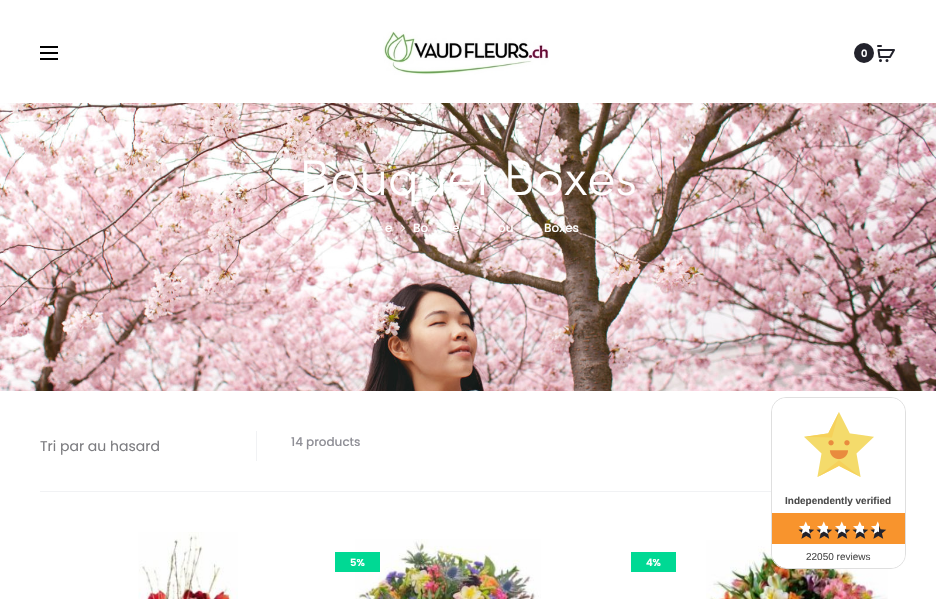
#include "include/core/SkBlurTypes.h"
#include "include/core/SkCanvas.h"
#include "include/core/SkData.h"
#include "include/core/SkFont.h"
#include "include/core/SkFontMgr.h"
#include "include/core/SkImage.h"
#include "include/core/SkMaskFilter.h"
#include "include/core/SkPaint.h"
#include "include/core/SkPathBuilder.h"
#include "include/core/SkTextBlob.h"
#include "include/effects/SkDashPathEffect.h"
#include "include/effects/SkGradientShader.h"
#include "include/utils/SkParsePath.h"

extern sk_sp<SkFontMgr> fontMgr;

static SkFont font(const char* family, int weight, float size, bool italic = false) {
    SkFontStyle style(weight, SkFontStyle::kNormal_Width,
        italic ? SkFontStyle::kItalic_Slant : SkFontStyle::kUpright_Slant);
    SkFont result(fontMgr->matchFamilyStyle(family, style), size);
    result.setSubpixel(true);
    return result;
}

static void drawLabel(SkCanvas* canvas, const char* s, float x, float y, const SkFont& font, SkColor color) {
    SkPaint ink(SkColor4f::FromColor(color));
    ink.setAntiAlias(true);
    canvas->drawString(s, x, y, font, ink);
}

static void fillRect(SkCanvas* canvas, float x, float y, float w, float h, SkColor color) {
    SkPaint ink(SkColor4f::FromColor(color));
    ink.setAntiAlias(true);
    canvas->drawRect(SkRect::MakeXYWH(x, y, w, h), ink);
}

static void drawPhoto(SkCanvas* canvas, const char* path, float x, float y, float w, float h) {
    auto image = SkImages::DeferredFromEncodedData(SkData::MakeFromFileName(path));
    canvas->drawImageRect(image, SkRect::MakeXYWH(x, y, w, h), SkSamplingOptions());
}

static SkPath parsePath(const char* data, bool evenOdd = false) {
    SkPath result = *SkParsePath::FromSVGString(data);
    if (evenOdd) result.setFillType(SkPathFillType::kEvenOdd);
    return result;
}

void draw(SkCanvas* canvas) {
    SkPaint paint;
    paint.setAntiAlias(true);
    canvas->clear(0xFFFFFFFF);
    fillRect(canvas, 40, 52, 18, 2, 0xFF000000);
    fillRect(canvas, 40, 46, 18, 2, 0xFF000000);
    fillRect(canvas, 40, 58, 18, 2, 0xFF000000);
    drawPhoto(canvas, "assets/img1.png", 383, 31, 166, 44);
    paint.setColor(0xFF23232C);
    canvas->drawCircle(864, 53, 10, paint);
    SkFont font1 = font("Poppins", 600, 10);
    drawLabel(canvas, "0", 861, 57, font1, 0xFFFFFFFF);
    drawPhoto(canvas, "assets/img2.png", 877, 45, 18, 18);
    drawPhoto(canvas, "assets/img3.png", 0, 103, 936, 288);
    SkFont font2 = font("Sofia", 300, 50);
    drawLabel(canvas, "Bouquet Boxes", 299, 195, font2, 0xFFFFFFFF);
    SkFont font3 = font("Poppins", 500, 12);
    drawLabel(canvas, "e", 385, 232, font3, 0xFFFFFFFF);
    drawPhoto(canvas, "assets/img4.png", 401, 224, 4, 8);
    drawLabel(canvas, "Bo", 413, 232, font3, 0xFFFFFFFF);
    drawLabel(canvas, "e", 452, 232, font3, 0xFFFFFFFF);
    drawPhoto(canvas, "assets/img5.png", 478, 225, 4, 6);
    drawLabel(canvas, "ou", 498, 232, font3, 0xFFFFFFFF);
    drawLabel(canvas, "Boxes", 544, 232, font3, 0xFFFFFFFF);
    fillRect(canvas, 40, 491, 731, 1, 0xFFF1F2F4);
    fillRect(canvas, 256, 431, 1, 30, 0xFFF1F2F4);
    SkFont font4 = font("Poppins", 400, 14);
    drawLabel(canvas, "Tri par au hasard", 40, 451, font4, 0xFF7C7C80);
    drawLabel(canvas, "14 products", 291, 446, font3, 0xFF909097);
    drawPhoto(canvas, "assets/img6.png", 138, 532, 100, 67);
    drawPhoto(canvas, "assets/img7.png", 355, 539, 186, 60);
    fillRect(canvas, 335, 552, 45, 20, 0xFF00D994);
    drawLabel(canvas, "5%", 350, 566, font1, 0xFFFFFFFF);
    fillRect(canvas, 631, 552, 45, 20, 0xFF00D994);
    drawLabel(canvas, "4%", 646, 566, font1, 0xFFFFFFFF);
    drawPhoto(canvas, "assets/img8.png", 706, 540, 182, 59);
    paint.setStroke(true);
    paint.setStrokeWidth(1);
    paint.setColor(0xFFDFDFDF);
    canvas->drawRoundRect(SkRect::MakeXYWH(771.5f, 397.5f, 134, 171), 14.5f, 14.5f, paint);
    paint.setStroke(false);
    paint.setColor(0xFFFFFFFF);
    canvas->drawPath(parsePath("M786 398H891C898.5 398 905 404.5 905 412V513H772V412C772 404.5 778.5 398 786 398Z"), paint);
    fillRect(canvas, 772, 513, 133, 31, 0xFFF8942D);
    canvas->drawPath(parsePath("M772 544H905V554C905 561.5 898.5 568 891 568H786C778.5 568 772 561.5 772 554Z"), paint);
    drawPhoto(canvas, "assets/img9.png", 804, 412, 70, 65);
    SkFont font5 = font("Liberation Sans", 700, 10);
    drawLabel(canvas, "Independently verified", 785, 504, font5, 0xFF4C4C4C);
    drawPhoto(canvas, "assets/img11.png", 798, 524, 17, 15);
    drawPhoto(canvas, "assets/img10.png", 799, 521, 11, 13);
    drawPhoto(canvas, "assets/img11.png", 816, 524, 17, 15);
    drawPhoto(canvas, "assets/img10.png", 817, 521, 11, 13);
    drawPhoto(canvas, "assets/img11.png", 834, 524, 17, 15);
    drawPhoto(canvas, "assets/img10.png", 835, 521, 11, 13);
    drawPhoto(canvas, "assets/img11.png", 852, 524, 17, 15);
    drawPhoto(canvas, "assets/img10.png", 853, 521, 11, 13);
    drawPhoto(canvas, "assets/img11.png", 870, 524, 17, 15);
    drawPhoto(canvas, "assets/img12.png", 871, 521, 8, 13);
    SkFont font6 = font("Liberation Sans", 400, 10);
    drawLabel(canvas, "22050 reviews", 806, 560, font6, 0xFF4C4C4C);
}
